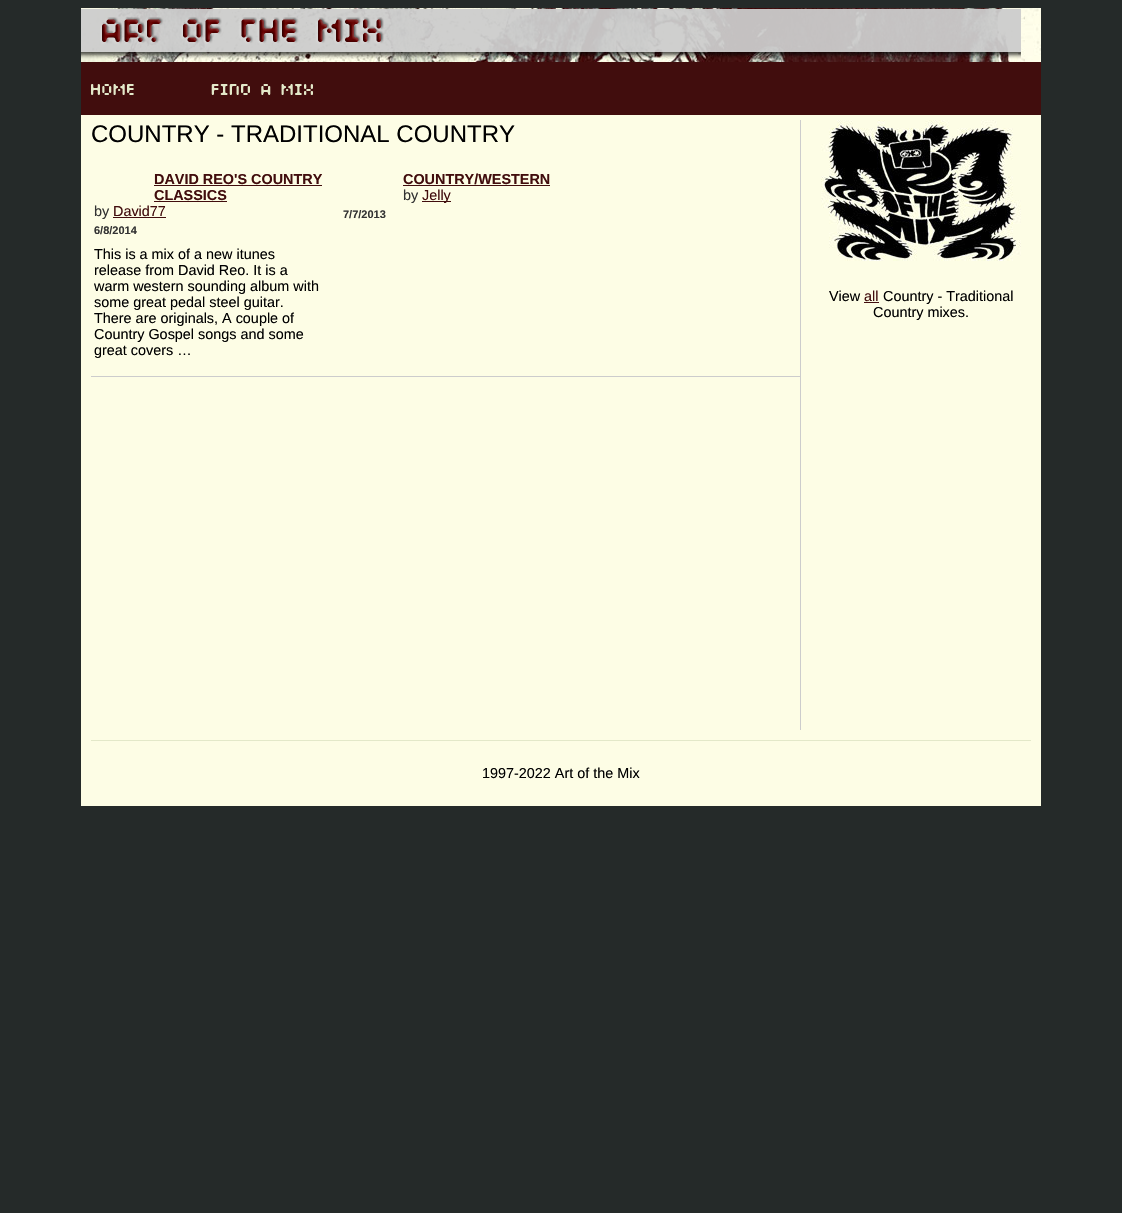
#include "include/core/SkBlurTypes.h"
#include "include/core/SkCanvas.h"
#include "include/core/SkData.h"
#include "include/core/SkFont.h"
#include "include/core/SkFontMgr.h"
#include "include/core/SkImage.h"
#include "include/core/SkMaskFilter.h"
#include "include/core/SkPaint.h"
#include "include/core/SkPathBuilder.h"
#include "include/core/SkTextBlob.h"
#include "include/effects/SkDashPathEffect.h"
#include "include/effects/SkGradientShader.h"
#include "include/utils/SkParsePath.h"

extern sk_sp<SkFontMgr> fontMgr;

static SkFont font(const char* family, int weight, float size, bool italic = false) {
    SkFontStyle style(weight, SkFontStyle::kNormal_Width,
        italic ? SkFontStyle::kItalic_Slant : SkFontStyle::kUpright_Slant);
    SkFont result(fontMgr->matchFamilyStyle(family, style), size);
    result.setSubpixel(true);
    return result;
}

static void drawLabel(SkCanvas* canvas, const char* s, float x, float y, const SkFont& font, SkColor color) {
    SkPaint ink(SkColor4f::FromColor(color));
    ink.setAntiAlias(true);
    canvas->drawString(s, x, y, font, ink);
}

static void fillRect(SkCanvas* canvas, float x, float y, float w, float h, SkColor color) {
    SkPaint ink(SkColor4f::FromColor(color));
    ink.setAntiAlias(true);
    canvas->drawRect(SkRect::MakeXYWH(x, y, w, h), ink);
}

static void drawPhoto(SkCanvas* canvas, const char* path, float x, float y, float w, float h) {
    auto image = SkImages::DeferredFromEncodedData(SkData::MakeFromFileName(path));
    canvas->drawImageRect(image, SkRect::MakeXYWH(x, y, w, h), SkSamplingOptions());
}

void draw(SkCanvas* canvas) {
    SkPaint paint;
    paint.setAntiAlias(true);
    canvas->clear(0xFF252A29);
    fillRect(canvas, 81, 115, 960, 691, 0xFFFDFDE5);
    drawPhoto(canvas, "assets/img1.png", 81, 8, 960, 54);
    drawPhoto(canvas, "assets/img2.png", 81, 8, 940, 51);
    fillRect(canvas, 81, 62, 960, 53, 0xFF410D0D);
    drawPhoto(canvas, "assets/img3.png", 91, 84, 43, 11);
    drawPhoto(canvas, "assets/img4.png", 211, 84, 102, 11);
    fillRect(canvas, 800, 120, 1, 610, 0xFFCCCCCC);
    SkFont font1 = font("Liberation Sans", 400, 24);
    drawLabel(canvas, "COUNTRY - TRADITIONAL COUNTRY", 91, 142, font1, 0xFF000000);
    SkFont font2 = font("Liberation Sans", 700, 14.4f);
    drawLabel(canvas, "DAVID REO'S COUNTRY", 154, 184, font2, 0xFF410D0D);
    fillRect(canvas, 154, 185, 168, 1, 0xFF410D0D);
    drawLabel(canvas, "CLASSICS", 154, 200, font2, 0xFF410D0D);
    fillRect(canvas, 154, 201, 73, 1, 0xFF410D0D);
    SkFont font3 = font("Liberation Sans", 400, 14.4f);
    drawLabel(canvas, "by", 94, 216, font3, 0xFF333333);
    drawLabel(canvas, "David77", 113, 216, font3, 0xFF410D0D);
    fillRect(canvas, 113, 217, 53, 1, 0xFF410D0D);
    SkFont font4 = font("Liberation Sans", 700, 11);
    drawLabel(canvas, "6/8/2014", 94, 234, font4, 0xFF333333);
    drawLabel(canvas, "This is a mix of a new itunes", 94, 259, font3, 0xFF000000);
    drawLabel(canvas, "release from David Reo. It is a", 94, 275, font3, 0xFF000000);
    drawLabel(canvas, "warm western sounding album with", 94, 291, font3, 0xFF000000);
    drawLabel(canvas, "some great pedal steel guitar.", 94, 307, font3, 0xFF000000);
    drawLabel(canvas, "There are originals, A couple of", 94, 323, font3, 0xFF000000);
    drawLabel(canvas, "Country Gospel songs and some", 94, 339, font3, 0xFF000000);
    drawLabel(canvas, "great covers …", 94, 355, font3, 0xFF000000);
    drawLabel(canvas, "COUNTRY/WESTERN", 403, 184, font2, 0xFF410D0D);
    fillRect(canvas, 403, 185, 147, 1, 0xFF410D0D);
    drawLabel(canvas, "by", 403, 200, font3, 0xFF333333);
    fillRect(canvas, 422, 201, 29, 1, 0xFF410D0D);
    drawLabel(canvas, "Jelly", 422, 200, font3, 0xFF410D0D);
    drawLabel(canvas, "7/7/2013", 343, 218, font4, 0xFF333333);
    fillRect(canvas, 91, 376, 709, 1, 0xFFCCCCCC);
    drawPhoto(canvas, "assets/img5.png", 821, 120, 200, 141);
    drawLabel(canvas, "View", 829, 301, font3, 0xFF000000);
    drawLabel(canvas, "all", 864, 301, font3, 0xFF410D0D);
    fillRect(canvas, 864, 302, 15, 1, 0xFF410D0D);
    drawLabel(canvas, "Country - Traditional", 883, 301, font3, 0xFF000000);
    drawLabel(canvas, "Country mixes.", 873, 317, font3, 0xFF000000);
    fillRect(canvas, 91, 740, 940, 1, 0xFFE3E8C9);
    drawLabel(canvas, "1997-2022 Art of the Mix", 482, 778, font3, 0xFF000000);
}
